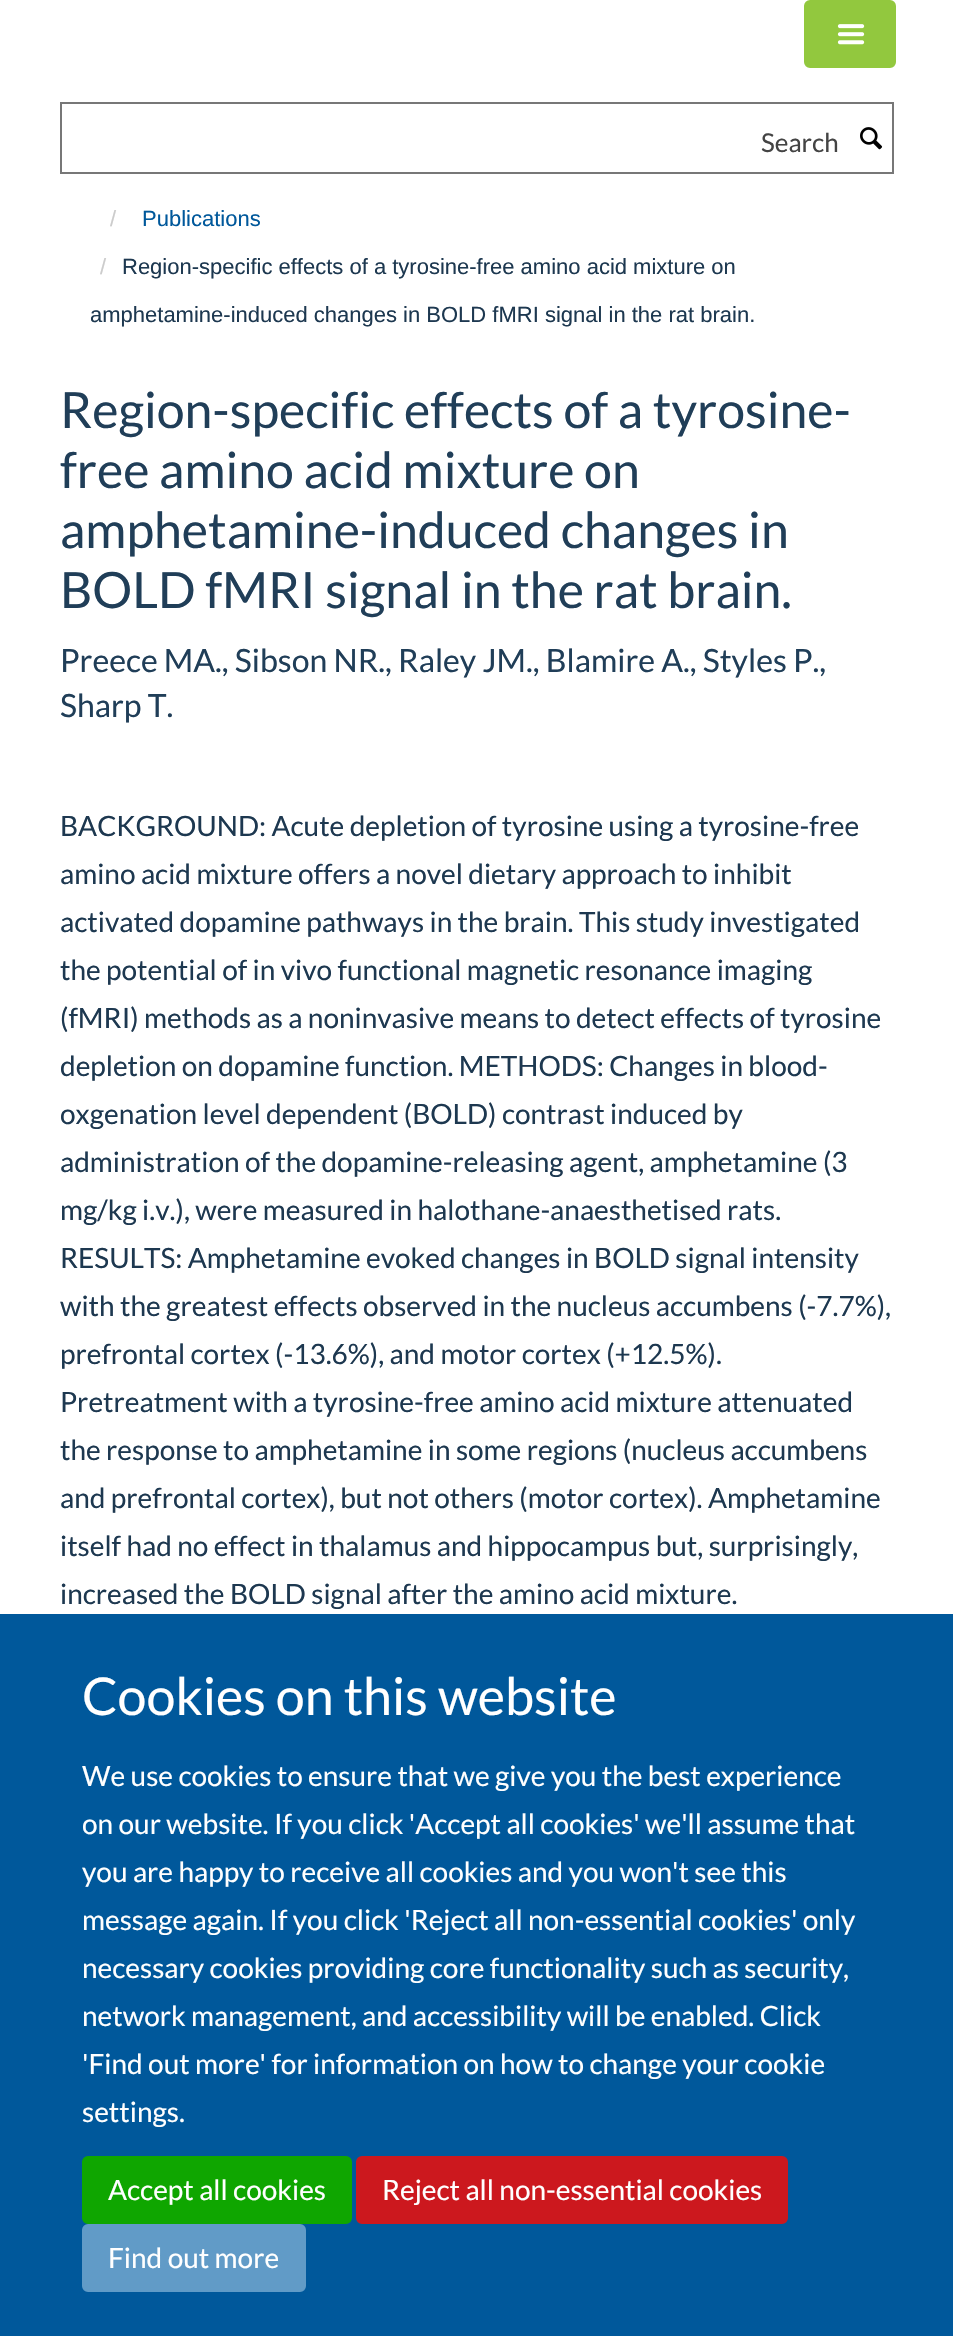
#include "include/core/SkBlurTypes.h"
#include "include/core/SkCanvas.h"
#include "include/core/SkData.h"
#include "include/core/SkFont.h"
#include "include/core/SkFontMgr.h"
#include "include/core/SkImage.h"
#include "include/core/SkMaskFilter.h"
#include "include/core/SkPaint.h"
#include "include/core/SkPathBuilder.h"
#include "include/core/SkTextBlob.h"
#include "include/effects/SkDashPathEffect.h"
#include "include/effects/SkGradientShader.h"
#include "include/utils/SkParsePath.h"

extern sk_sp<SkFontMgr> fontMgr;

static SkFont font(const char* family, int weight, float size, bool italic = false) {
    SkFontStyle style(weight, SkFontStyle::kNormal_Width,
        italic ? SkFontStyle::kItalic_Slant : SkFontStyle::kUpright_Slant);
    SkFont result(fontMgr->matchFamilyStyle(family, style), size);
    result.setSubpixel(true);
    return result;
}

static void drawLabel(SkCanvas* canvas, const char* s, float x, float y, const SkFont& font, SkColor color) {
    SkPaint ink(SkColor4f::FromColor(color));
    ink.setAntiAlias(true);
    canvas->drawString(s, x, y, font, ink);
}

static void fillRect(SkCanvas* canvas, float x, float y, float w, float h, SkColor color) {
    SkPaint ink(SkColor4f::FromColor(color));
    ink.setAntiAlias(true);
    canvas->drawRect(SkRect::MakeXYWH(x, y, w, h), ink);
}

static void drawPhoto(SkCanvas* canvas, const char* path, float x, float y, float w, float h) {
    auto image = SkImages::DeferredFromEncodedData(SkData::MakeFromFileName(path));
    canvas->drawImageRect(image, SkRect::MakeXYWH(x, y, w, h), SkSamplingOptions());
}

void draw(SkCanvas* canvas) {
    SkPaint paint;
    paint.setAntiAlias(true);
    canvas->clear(0xFFFFFFFF);
    paint.setColor(0xFF92C83E);
    canvas->drawRoundRect(SkRect::MakeXYWH(805, 1, 90, 66), 5, 5, paint);
    paint.setStroke(true);
    paint.setStrokeWidth(2);
    canvas->drawRoundRect(SkRect::MakeXYWH(805, 1, 90, 66), 5, 5, paint);
    drawPhoto(canvas, "assets/img1.png", 837, 24, 28, 21);
    paint.setColor(0xFF777777);
    canvas->drawRect(SkRect::MakeXYWH(61, 103, 832, 70), paint);
    SkFont font1 = font("Lato", 400, 26);
    drawLabel(canvas, "Search", 761, 152, font1, 0xFF444444);
    drawPhoto(canvas, "assets/img2.png", 860, 127, 23, 23);
    SkFont font2 = font("Liberation Sans", 400, 22);
    drawLabel(canvas, "/", 110, 226, font2, 0xFFCCCCCC);
    drawLabel(canvas, "Publications", 142, 226, font2, 0xFF00589B);
    drawLabel(canvas, "/", 100, 274, font2, 0xFFCCCCCC);
    drawLabel(canvas, "Region-specific effects of a tyrosine-free amino acid mixture on", 122, 274, font2, 0xFF1D3850);
    drawLabel(canvas, "amphetamine-induced changes in BOLD fMRI signal in the rat brain.", 90, 322, font2, 0xFF1D3850);
    SkFont font3 = font("Lato", 400, 50);
    drawLabel(canvas, "Region-specific effects of a tyrosine-", 60, 428, font3, 0xFF203E58);
    drawLabel(canvas, "free amino acid mixture on", 60, 488, font3, 0xFF203E58);
    drawLabel(canvas, "amphetamine-induced changes in", 60, 548, font3, 0xFF203E58);
    drawLabel(canvas, "BOLD fMRI signal in the rat brain.", 60, 608, font3, 0xFF203E58);
    SkFont font4 = font("Lato", 400, 32);
    drawLabel(canvas, "Preece MA., Sibson NR., Raley JM., Blamire A., Styles P.,", 60, 672, font4, 0xFF203E58);
    drawLabel(canvas, "Sharp T.", 60, 717, font4, 0xFF203E58);
    SkFont font5 = font("Lato", 400, 28);
    drawLabel(canvas, "BACKGROUND: Acute depletion of tyrosine using a tyrosine-free", 60, 836, font5, 0xFF1D3850);
    drawLabel(canvas, "amino acid mixture offers a novel dietary approach to inhibit", 60, 884, font5, 0xFF1D3850);
    drawLabel(canvas, "activated dopamine pathways in the brain. This study investigated", 60, 932, font5, 0xFF1D3850);
    drawLabel(canvas, "the potential of in vivo functional magnetic resonance imaging", 60, 980, font5, 0xFF1D3850);
    drawLabel(canvas, "(fMRI) methods as a noninvasive means to detect effects of tyrosine", 60, 1028, font5, 0xFF1D3850);
    drawLabel(canvas, "depletion on dopamine function. METHODS: Changes in blood-", 60, 1076, font5, 0xFF1D3850);
    drawLabel(canvas, "oxgenation level dependent (BOLD) contrast induced by", 60, 1124, font5, 0xFF1D3850);
    drawLabel(canvas, "administration of the dopamine-releasing agent, amphetamine (3", 60, 1172, font5, 0xFF1D3850);
    drawLabel(canvas, "mg/kg i.v.), were measured in halothane-anaesthetised rats.", 60, 1220, font5, 0xFF1D3850);
    drawLabel(canvas, "RESULTS: Amphetamine evoked changes in BOLD signal intensity", 60, 1268, font5, 0xFF1D3850);
    drawLabel(canvas, "with the greatest effects observed in the nucleus accumbens (-7.7%),", 60, 1316, font5, 0xFF1D3850);
    drawLabel(canvas, "prefrontal cortex (-13.6%), and motor cortex (+12.5%).", 60, 1364, font5, 0xFF1D3850);
    drawLabel(canvas, "Pretreatment with a tyrosine-free amino acid mixture attenuated", 60, 1412, font5, 0xFF1D3850);
    drawLabel(canvas, "the response to amphetamine in some regions (nucleus accumbens", 60, 1460, font5, 0xFF1D3850);
    drawLabel(canvas, "and prefrontal cortex), but not others (motor cortex). Amphetamine", 60, 1508, font5, 0xFF1D3850);
    drawLabel(canvas, "itself had no effect in thalamus and hippocampus but, surprisingly,", 60, 1556, font5, 0xFF1D3850);
    drawLabel(canvas, "increased the BOLD signal after the amino acid mixture.", 60, 1604, font5, 0xFF1D3850);
    fillRect(canvas, 0, 1614, 953, 722, 0xFF00589B);
    SkFont font6 = font("Lato", 400, 52);
    drawLabel(canvas, "Cookies on this website", 82, 1715, font6, 0xFFFFFFFF);
    drawLabel(canvas, "We use cookies to ensure that we give you the best experience", 82, 1786, font5, 0xFFFFFFFF);
    drawLabel(canvas, "on our website. If you click 'Accept all cookies' we'll assume that", 82, 1834, font5, 0xFFFFFFFF);
    drawLabel(canvas, "you are happy to receive all cookies and you won't see this", 82, 1882, font5, 0xFFFFFFFF);
    drawLabel(canvas, "message again. If you click 'Reject all non-essential cookies' only", 82, 1930, font5, 0xFFFFFFFF);
    drawLabel(canvas, "necessary cookies providing core functionality such as security,", 82, 1978, font5, 0xFFFFFFFF);
    drawLabel(canvas, "network management, and accessibility will be enabled. Click", 82, 2026, font5, 0xFFFFFFFF);
    drawLabel(canvas, "'Find out more' for information on how to change your cookie", 82, 2074, font5, 0xFFFFFFFF);
    drawLabel(canvas, "settings.", 82, 2122, font5, 0xFFFFFFFF);
    paint.setStroke(false);
    paint.setColor(0xFF0FA600);
    canvas->drawRoundRect(SkRect::MakeXYWH(83, 2157, 268, 66), 5, 5, paint);
    paint.setStroke(true);
    canvas->drawRoundRect(SkRect::MakeXYWH(83, 2157, 268, 66), 5, 5, paint);
    drawLabel(canvas, "Accept all cookies", 108, 2200, font5, 0xFFFFFFFF);
    paint.setStroke(false);
    paint.setColor(0xFFCC181E);
    canvas->drawRoundRect(SkRect::MakeXYWH(357, 2157, 430, 66), 5, 5, paint);
    paint.setStroke(true);
    canvas->drawRoundRect(SkRect::MakeXYWH(357, 2157, 430, 66), 5, 5, paint);
    drawLabel(canvas, "Reject all non-essential cookies", 382, 2200, font5, 0xFFFFFFFF);
    paint.setStroke(false);
    paint.setColor(0xFF619BC7);
    canvas->drawRoundRect(SkRect::MakeXYWH(83, 2225, 222, 66), 5, 5, paint);
    paint.setStroke(true);
    canvas->drawRoundRect(SkRect::MakeXYWH(83, 2225, 222, 66), 5, 5, paint);
    drawLabel(canvas, "Find out more", 108, 2268, font5, 0xFFFFFFFF);
}
